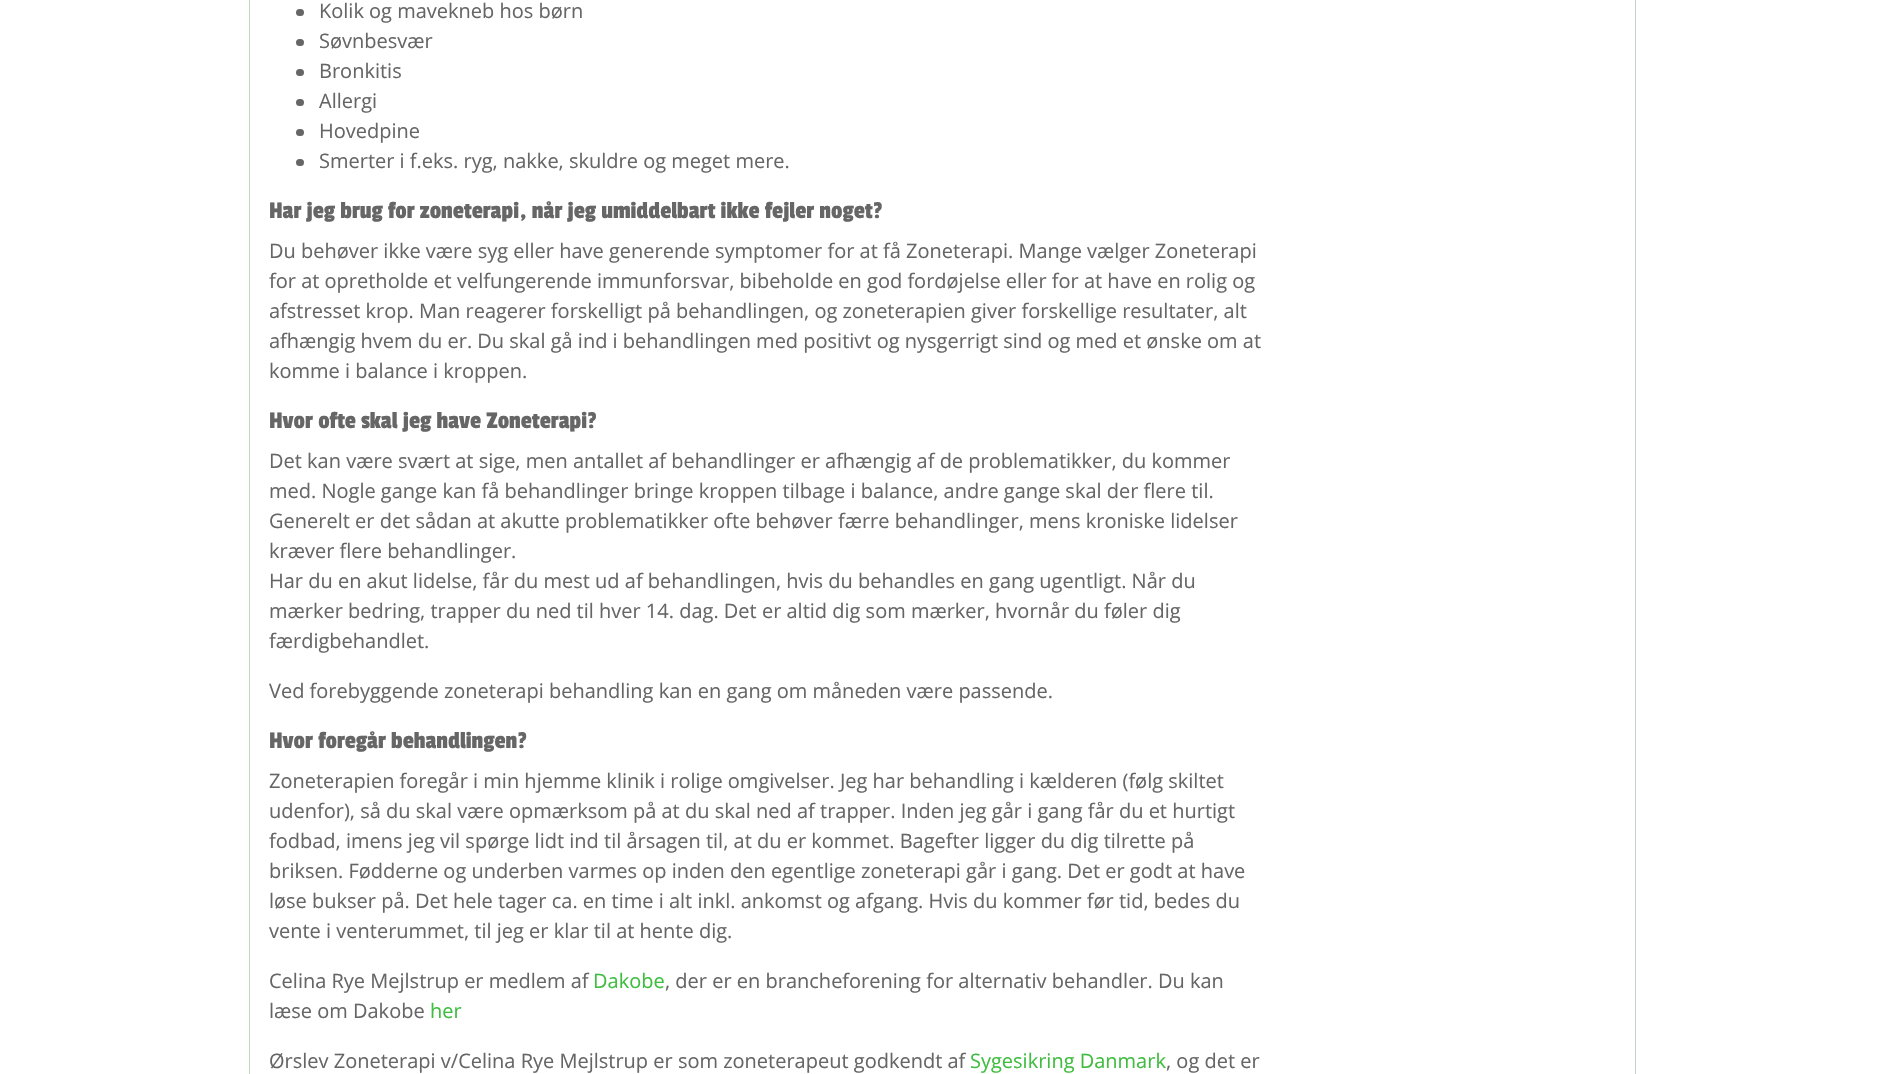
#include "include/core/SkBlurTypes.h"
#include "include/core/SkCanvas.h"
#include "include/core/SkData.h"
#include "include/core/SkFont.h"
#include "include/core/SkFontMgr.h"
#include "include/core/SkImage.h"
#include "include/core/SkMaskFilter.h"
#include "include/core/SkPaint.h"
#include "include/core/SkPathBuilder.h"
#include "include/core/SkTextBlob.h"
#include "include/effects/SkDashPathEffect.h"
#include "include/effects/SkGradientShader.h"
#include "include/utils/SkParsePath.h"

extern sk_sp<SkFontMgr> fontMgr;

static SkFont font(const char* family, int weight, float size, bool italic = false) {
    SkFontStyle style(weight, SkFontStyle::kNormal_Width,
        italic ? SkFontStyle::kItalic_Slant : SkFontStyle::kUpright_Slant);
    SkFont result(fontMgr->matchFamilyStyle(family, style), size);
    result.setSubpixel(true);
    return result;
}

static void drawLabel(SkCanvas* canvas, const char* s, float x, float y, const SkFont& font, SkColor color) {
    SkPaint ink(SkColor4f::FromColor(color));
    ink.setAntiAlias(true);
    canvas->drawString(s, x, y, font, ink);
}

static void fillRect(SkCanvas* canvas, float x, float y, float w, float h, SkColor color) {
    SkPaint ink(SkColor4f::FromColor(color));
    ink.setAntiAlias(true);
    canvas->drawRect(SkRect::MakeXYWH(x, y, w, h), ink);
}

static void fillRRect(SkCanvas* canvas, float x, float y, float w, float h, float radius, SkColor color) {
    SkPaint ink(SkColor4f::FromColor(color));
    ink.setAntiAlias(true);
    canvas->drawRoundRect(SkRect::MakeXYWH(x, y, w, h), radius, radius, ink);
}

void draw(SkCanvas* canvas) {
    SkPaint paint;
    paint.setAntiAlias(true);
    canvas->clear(0xFFFFFFFF);
    fillRect(canvas, 1635, 0, 1, 1074, 0xFFC5D5C5);
    fillRect(canvas, 249, 0, 1, 1074, 0xFFC5D5C5);
    fillRRect(canvas, 296, 9, 8, 7, 3.5f, 0xFF666666);
    SkFont font1 = font("Open Sans", 400, 20);
    drawLabel(canvas, "Kolik og mavekneb hos børn", 319, 18, font1, 0xFF666666);
    fillRRect(canvas, 296, 39, 8, 7, 3.5f, 0xFF666666);
    drawLabel(canvas, "Søvnbesvær", 319, 48, font1, 0xFF666666);
    fillRRect(canvas, 296, 69, 8, 7, 3.5f, 0xFF666666);
    drawLabel(canvas, "Bronkitis", 319, 78, font1, 0xFF666666);
    fillRRect(canvas, 296, 99, 8, 7, 3.5f, 0xFF666666);
    drawLabel(canvas, "Allergi", 319, 108, font1, 0xFF666666);
    fillRRect(canvas, 296, 129, 8, 7, 3.5f, 0xFF666666);
    drawLabel(canvas, "Hovedpine", 319, 138, font1, 0xFF666666);
    fillRRect(canvas, 296, 159, 8, 7, 3.5f, 0xFF666666);
    drawLabel(canvas, "Smerter i f.eks. ryg, nakke, skuldre og meget mere.", 319, 168, font1, 0xFF666666);
    SkFont font2 = font("Passion One", 400, 25);
    drawLabel(canvas, "Har jeg brug for zoneterapi, når jeg umiddelbart ikke fejler noget?", 269, 218, font2, 0xFF666666);
    drawLabel(canvas, "Du behøver ikke være syg eller have generende symptomer for at få Zoneterapi. Mange vælger Zoneterapi", 269, 258, font1, 0xFF666666);
    drawLabel(canvas, "for at opretholde et velfungerende immunforsvar, bibeholde en god fordøjelse eller for at have en rolig og", 269, 288, font1, 0xFF666666);
    drawLabel(canvas, "afstresset krop. Man reagerer forskelligt på behandlingen, og zoneterapien giver forskellige resultater, alt", 269, 318, font1, 0xFF666666);
    drawLabel(canvas, "afhængig hvem du er. Du skal gå ind i behandlingen med positivt og nysgerrigt sind og med et ønske om at", 269, 348, font1, 0xFF666666);
    drawLabel(canvas, "komme i balance i kroppen.", 269, 378, font1, 0xFF666666);
    drawLabel(canvas, "Hvor ofte skal jeg have Zoneterapi?", 269, 428, font2, 0xFF666666);
    drawLabel(canvas, "Det kan være svært at sige, men antallet af behandlinger er afhængig af de problematikker, du kommer", 269, 468, font1, 0xFF666666);
    drawLabel(canvas, "med. Nogle gange kan få behandlinger bringe kroppen tilbage i balance, andre gange skal der flere til.", 269, 498, font1, 0xFF666666);
    drawLabel(canvas, "Generelt er det sådan at akutte problematikker ofte behøver færre behandlinger, mens kroniske lidelser", 269, 528, font1, 0xFF666666);
    drawLabel(canvas, "kræver flere behandlinger.", 269, 558, font1, 0xFF666666);
    drawLabel(canvas, "Har du en akut lidelse, får du mest ud af behandlingen, hvis du behandles en gang ugentligt. Når du", 269, 588, font1, 0xFF666666);
    drawLabel(canvas, "mærker bedring, trapper du ned til hver 14. dag. Det er altid dig som mærker, hvornår du føler dig", 269, 618, font1, 0xFF666666);
    drawLabel(canvas, "færdigbehandlet.", 269, 648, font1, 0xFF666666);
    drawLabel(canvas, "Ved forebyggende zoneterapi behandling kan en gang om måneden være passende.", 269, 698, font1, 0xFF666666);
    drawLabel(canvas, "Hvor foregår behandlingen?", 269, 748, font2, 0xFF666666);
    drawLabel(canvas, "Zoneterapien foregår i min hjemme klinik i rolige omgivelser. Jeg har behandling i kælderen (følg skiltet", 269, 788, font1, 0xFF666666);
    drawLabel(canvas, "udenfor), så du skal være opmærksom på at du skal ned af trapper. Inden jeg går i gang får du et hurtigt", 269, 818, font1, 0xFF666666);
    drawLabel(canvas, "fodbad, imens jeg vil spørge lidt ind til årsagen til, at du er kommet. Bagefter ligger du dig tilrette på", 269, 848, font1, 0xFF666666);
    drawLabel(canvas, "briksen. Fødderne og underben varmes op inden den egentlige zoneterapi går i gang. Det er godt at have", 269, 878, font1, 0xFF666666);
    drawLabel(canvas, "løse bukser på. Det hele tager ca. en time i alt inkl. ankomst og afgang. Hvis du kommer før tid, bedes du", 269, 908, font1, 0xFF666666);
    drawLabel(canvas, "vente i venterummet, til jeg er klar til at hente dig.", 269, 938, font1, 0xFF666666);
    drawLabel(canvas, "Celina Rye Mejlstrup er medlem af", 269, 988, font1, 0xFF666666);
    drawLabel(canvas, "Dakobe", 593, 988, font1, 0xFF40BD40);
    drawLabel(canvas, ", der er en brancheforening for alternativ behandler. Du kan", 665, 988, font1, 0xFF666666);
    drawLabel(canvas, "læse om Dakobe", 269, 1018, font1, 0xFF666666);
    drawLabel(canvas, "her", 430, 1018, font1, 0xFF40BD40);
    drawLabel(canvas, "Ørslev Zoneterapi v/Celina Rye Mejlstrup er som zoneterapeut godkendt af", 269, 1068, font1, 0xFF666666);
    drawLabel(canvas, "Sygesikring Danmark", 970, 1068, font1, 0xFF40BD40);
    drawLabel(canvas, ", og det er", 1166, 1068, font1, 0xFF666666);
}
